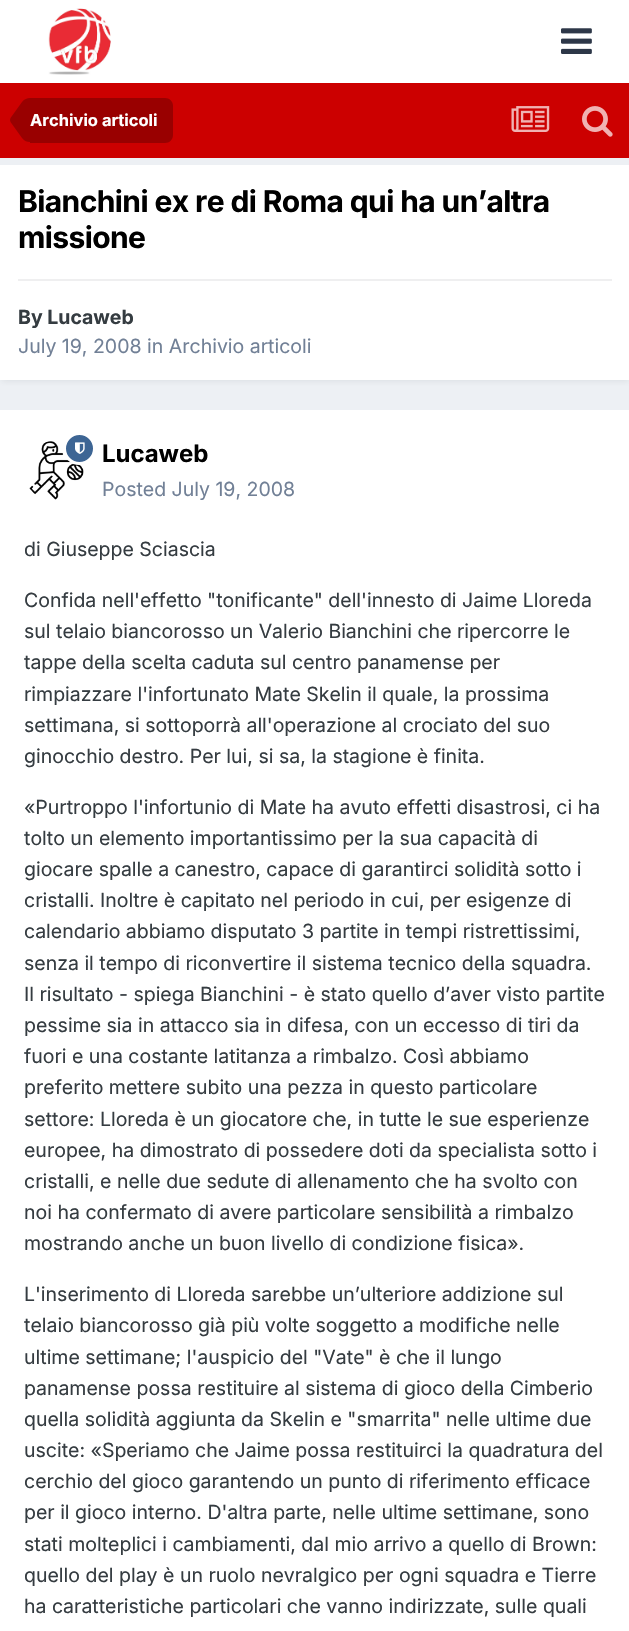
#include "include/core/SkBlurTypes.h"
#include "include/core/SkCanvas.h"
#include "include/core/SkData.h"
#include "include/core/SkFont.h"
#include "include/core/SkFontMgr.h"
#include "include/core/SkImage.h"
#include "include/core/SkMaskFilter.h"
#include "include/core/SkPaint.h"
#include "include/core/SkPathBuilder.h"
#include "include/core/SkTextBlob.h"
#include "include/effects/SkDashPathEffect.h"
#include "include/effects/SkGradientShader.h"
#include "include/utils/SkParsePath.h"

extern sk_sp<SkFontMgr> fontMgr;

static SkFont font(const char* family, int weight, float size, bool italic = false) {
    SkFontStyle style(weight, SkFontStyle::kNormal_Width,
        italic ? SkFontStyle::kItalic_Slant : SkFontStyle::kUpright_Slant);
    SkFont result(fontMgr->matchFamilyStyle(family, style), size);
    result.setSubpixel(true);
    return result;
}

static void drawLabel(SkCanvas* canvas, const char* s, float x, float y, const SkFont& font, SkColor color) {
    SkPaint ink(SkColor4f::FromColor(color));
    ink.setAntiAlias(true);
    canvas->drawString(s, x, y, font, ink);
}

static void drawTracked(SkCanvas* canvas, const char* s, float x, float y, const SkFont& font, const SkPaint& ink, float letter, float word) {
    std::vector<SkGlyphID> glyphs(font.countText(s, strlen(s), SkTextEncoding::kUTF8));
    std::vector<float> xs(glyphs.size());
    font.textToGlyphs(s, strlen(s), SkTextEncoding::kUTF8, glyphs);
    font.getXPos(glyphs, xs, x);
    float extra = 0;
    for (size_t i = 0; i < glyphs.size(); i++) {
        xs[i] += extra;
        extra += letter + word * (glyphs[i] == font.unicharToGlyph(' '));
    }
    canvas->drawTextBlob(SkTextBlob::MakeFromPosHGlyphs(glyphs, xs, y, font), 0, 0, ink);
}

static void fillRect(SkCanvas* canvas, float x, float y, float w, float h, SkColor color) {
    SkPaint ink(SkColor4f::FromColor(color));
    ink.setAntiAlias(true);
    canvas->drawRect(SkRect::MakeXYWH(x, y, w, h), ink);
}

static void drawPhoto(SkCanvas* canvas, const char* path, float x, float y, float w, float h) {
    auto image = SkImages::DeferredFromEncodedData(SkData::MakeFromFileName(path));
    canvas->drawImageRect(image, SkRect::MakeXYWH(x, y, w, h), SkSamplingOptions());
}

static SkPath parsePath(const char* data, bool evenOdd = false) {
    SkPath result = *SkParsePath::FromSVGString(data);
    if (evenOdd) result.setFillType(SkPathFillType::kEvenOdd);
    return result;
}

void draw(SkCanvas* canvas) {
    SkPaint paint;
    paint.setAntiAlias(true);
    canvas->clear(0xFFEDF0F4);
    fillRect(canvas, 0, 0, 629, 83, 0xFFFFFFFF);
    drawPhoto(canvas, "assets/img1.png", 48, 8, 63, 67);
    drawPhoto(canvas, "assets/img2.png", 561, 28, 31, 26);
    fillRect(canvas, 0, 83, 629, 75, 0xFFCC0000);
    paint.setColor(0xFF990000);
    canvas->drawPath(parsePath("M30 98H165C169.5 98 173 101.5 173 106V135C173 139.5 169.5 143 165 143H30Z"), paint);
    canvas->drawPath(parsePath("M30 120V142C27 142 24.5 141 22 138L10.5 122L10 120ZM30 120H10L10.5 118L22 102C24.5 99 27 98 30 98Z"), paint);
    SkFont font1 = font("Inter", 700, 16.5f);
    drawLabel(canvas, "Archivio articoli", 30, 126, font1, 0xFFFFFFFF);
    drawPhoto(canvas, "assets/img3.png", 511, 106, 39, 26);
    drawPhoto(canvas, "assets/img4.png", 582, 106, 31, 31);
    paint.setColor(0x1A2D3748);
    paint.setMaskFilter(SkMaskFilter::MakeBlur(kNormal_SkBlurStyle, 3));
    canvas->drawRect(SkRect::MakeXYWH(2, 170, 627, 211), paint);
    paint.setMaskFilter(nullptr);
    fillRect(canvas, 0, 165, 629, 215, 0xFFFFFFFF);
    SkFont font2 = font("Inter", 700, 30);
    paint.setColor(0xFF000000);
    drawTracked(canvas, "Bianchini ex re di Roma qui ha un’altra", 18, 212, font2, paint, -0.6f, 0);
    drawTracked(canvas, "missione", 18, 248, font2, paint, -0.6f, 0);
    fillRect(canvas, 18, 279, 594, 2, 0xFFEFEFF0);
    SkFont font3 = font("Inter", 700, 19.5f);
    drawLabel(canvas, "By Lucaweb", 18, 324, font3, 0xFF353C41);
    SkFont font4 = font("Inter", 400, 19.5f);
    drawLabel(canvas, "July 19, 2008 in Archivio articoli", 18, 353, font4, 0xFF718096);
    fillRect(canvas, 0, 410, 629, 1221, 0xFFFFFFFF);
    drawPhoto(canvas, "assets/img6.png", 29, 441, 55, 59);
    paint.setColor(0xFF3D6594);
    canvas->drawCircle(79.5f, 448.5f, 15, paint);
    paint.setStroke(true);
    paint.setStrokeWidth(3);
    paint.setColor(0xFFFFFFFF);
    canvas->drawCircle(79.5f, 448.5f, 15, paint);
    drawPhoto(canvas, "assets/img5.png", 75, 442, 10, 12);
    SkFont font5 = font("Inter", 700, 24);
    drawLabel(canvas, "Lucaweb", 102, 462, font5, 0xFF000000);
    drawLabel(canvas, "Posted July 19, 2008", 102, 496, font4, 0xFF718096);
    drawLabel(canvas, "di Giuseppe Sciascia", 24, 556, font4, 0xFF353C41);
    drawLabel(canvas, "Confida nell'effetto \"tonificante\" dell'innesto di Jaime Lloreda", 24, 607, font4, 0xFF353C41);
    drawLabel(canvas, "sul telaio biancorosso un Valerio Bianchini che ripercorre le", 24, 638, font4, 0xFF353C41);
    drawLabel(canvas, "tappe della scelta caduta sul centro panamense per", 24, 669, font4, 0xFF353C41);
    drawLabel(canvas, "rimpiazzare l'infortunato Mate Skelin il quale, la prossima", 24, 701, font4, 0xFF353C41);
    drawLabel(canvas, "settimana, si sottoporrà all'operazione al crociato del suo", 24, 732, font4, 0xFF353C41);
    drawLabel(canvas, "ginocchio destro. Per lui, si sa, la stagione è finita.", 24, 763, font4, 0xFF353C41);
    drawLabel(canvas, "«Purtroppo l'infortunio di Mate ha avuto effetti disastrosi, ci ha", 24, 814, font4, 0xFF353C41);
    drawLabel(canvas, "tolto un elemento importantissimo per la sua capacità di", 24, 845, font4, 0xFF353C41);
    drawLabel(canvas, "giocare spalle a canestro, capace di garantirci solidità sotto i", 24, 876, font4, 0xFF353C41);
    drawLabel(canvas, "cristalli. Inoltre è capitato nel periodo in cui, per esigenze di", 24, 907, font4, 0xFF353C41);
    drawLabel(canvas, "calendario abbiamo disputato 3 partite in tempi ristrettissimi,", 24, 938, font4, 0xFF353C41);
    drawLabel(canvas, "senza il tempo di riconvertire il sistema tecnico della squadra.", 24, 970, font4, 0xFF353C41);
    drawLabel(canvas, "Il risultato - spiega Bianchini - è stato quello d’aver visto partite", 24, 1001, font4, 0xFF353C41);
    drawLabel(canvas, "pessime sia in attacco sia in difesa, con un eccesso di tiri da", 24, 1032, font4, 0xFF353C41);
    drawLabel(canvas, "fuori e una costante latitanza a rimbalzo. Così abbiamo", 24, 1063, font4, 0xFF353C41);
    drawLabel(canvas, "preferito mettere subito una pezza in questo particolare", 24, 1094, font4, 0xFF353C41);
    drawLabel(canvas, "settore: Lloreda è un giocatore che, in tutte le sue esperienze", 24, 1126, font4, 0xFF353C41);
    drawLabel(canvas, "europee, ha dimostrato di possedere doti da specialista sotto i", 24, 1157, font4, 0xFF353C41);
    drawLabel(canvas, "cristalli, e nelle due sedute di allenamento che ha svolto con", 24, 1188, font4, 0xFF353C41);
    drawLabel(canvas, "noi ha confermato di avere particolare sensibilità a rimbalzo", 24, 1219, font4, 0xFF353C41);
    drawLabel(canvas, "mostrando anche un buon livello di condizione fisica».", 24, 1250, font4, 0xFF353C41);
    drawLabel(canvas, "L'inserimento di Lloreda sarebbe un’ulteriore addizione sul", 24, 1301, font4, 0xFF353C41);
    drawLabel(canvas, "telaio biancorosso già più volte soggetto a modifiche nelle", 24, 1332, font4, 0xFF353C41);
    drawLabel(canvas, "ultime settimane; l'auspicio del \"Vate\" è che il lungo", 24, 1364, font4, 0xFF353C41);
    drawLabel(canvas, "panamense possa restituire al sistema di gioco della Cimberio", 24, 1395, font4, 0xFF353C41);
    drawLabel(canvas, "quella solidità aggiunta da Skelin e \"smarrita\" nelle ultime due", 24, 1426, font4, 0xFF353C41);
    drawLabel(canvas, "uscite: «Speriamo che Jaime possa restituirci la quadratura del", 24, 1457, font4, 0xFF353C41);
    drawLabel(canvas, "cerchio del gioco garantendo un punto di riferimento efficace", 24, 1488, font4, 0xFF353C41);
    drawLabel(canvas, "per il gioco interno. D'altra parte, nelle ultime settimane, sono", 24, 1519, font4, 0xFF353C41);
    drawLabel(canvas, "stati molteplici i cambiamenti, dal mio arrivo a quello di Brown:", 24, 1551, font4, 0xFF353C41);
    drawLabel(canvas, "quello del play è un ruolo nevralgico per ogni squadra e Tierre", 24, 1582, font4, 0xFF353C41);
    drawLabel(canvas, "ha caratteristiche particolari che vanno indirizzate, sulle quali", 24, 1613, font4, 0xFF353C41);
}
